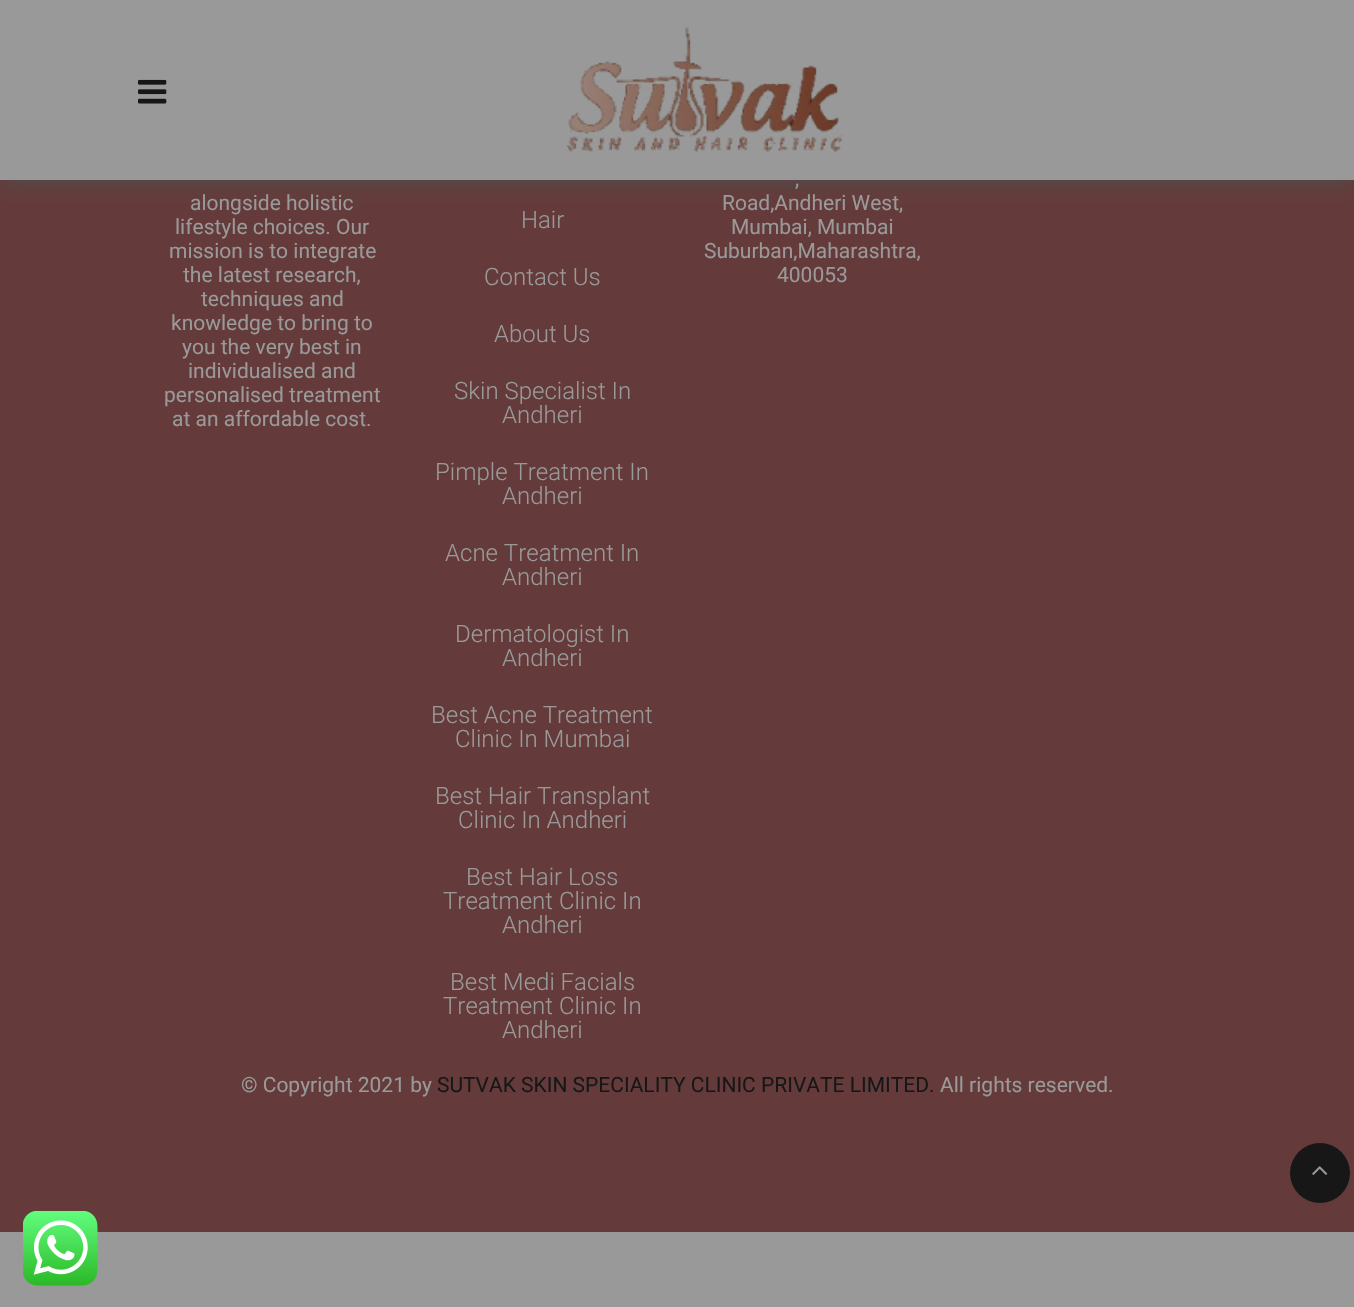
#include "include/core/SkBlurTypes.h"
#include "include/core/SkCanvas.h"
#include "include/core/SkData.h"
#include "include/core/SkFont.h"
#include "include/core/SkFontMgr.h"
#include "include/core/SkImage.h"
#include "include/core/SkMaskFilter.h"
#include "include/core/SkPaint.h"
#include "include/core/SkPathBuilder.h"
#include "include/core/SkTextBlob.h"
#include "include/effects/SkDashPathEffect.h"
#include "include/effects/SkGradientShader.h"
#include "include/utils/SkParsePath.h"

extern sk_sp<SkFontMgr> fontMgr;

static SkFont font(const char* family, int weight, float size, bool italic = false) {
    SkFontStyle style(weight, SkFontStyle::kNormal_Width,
        italic ? SkFontStyle::kItalic_Slant : SkFontStyle::kUpright_Slant);
    SkFont result(fontMgr->matchFamilyStyle(family, style), size);
    result.setSubpixel(true);
    return result;
}

static void drawLabel(SkCanvas* canvas, const char* s, float x, float y, const SkFont& font, SkColor color) {
    SkPaint ink(SkColor4f::FromColor(color));
    ink.setAntiAlias(true);
    canvas->drawString(s, x, y, font, ink);
}

static void fillRect(SkCanvas* canvas, float x, float y, float w, float h, SkColor color) {
    SkPaint ink(SkColor4f::FromColor(color));
    ink.setAntiAlias(true);
    canvas->drawRect(SkRect::MakeXYWH(x, y, w, h), ink);
}

static void drawPhoto(SkCanvas* canvas, const char* path, float x, float y, float w, float h) {
    auto image = SkImages::DeferredFromEncodedData(SkData::MakeFromFileName(path));
    canvas->drawImageRect(image, SkRect::MakeXYWH(x, y, w, h), SkSamplingOptions());
}

void draw(SkCanvas* canvas) {
    SkPaint paint;
    paint.setAntiAlias(true);
    canvas->clear(0xFF999999);
    fillRect(canvas, 0, 180, 1354, 1052, 0xFF643B3A);
    paint.setColor(0xFF4D4D4D);
    paint.setMaskFilter(SkMaskFilter::MakeBlur(kNormal_SkBlurStyle, 10));
    canvas->drawRect(SkRect::MakeXYWH(5, 11, 1345, 171), paint);
    paint.setMaskFilter(nullptr);
    fillRect(canvas, 0, 0, 1354, 180, 0xFF999999);
    drawPhoto(canvas, "assets/img1.png", 138, 79, 29, 25);
    drawPhoto(canvas, "assets/img2.png", 566, 27, 277, 125);
    SkFont font1 = font("Roboto", 400, 21);
    drawLabel(canvas, "alongside holistic", 190, 210, font1, 0xFF999999);
    drawLabel(canvas, "lifestyle choices. Our", 175, 234, font1, 0xFF999999);
    drawLabel(canvas, "mission is to integrate", 169, 258, font1, 0xFF999999);
    drawLabel(canvas, "the latest research,", 183, 282, font1, 0xFF999999);
    drawLabel(canvas, "techniques and", 201, 306, font1, 0xFF999999);
    drawLabel(canvas, "knowledge to bring to", 171, 330, font1, 0xFF999999);
    drawLabel(canvas, "you the very best in", 182, 354, font1, 0xFF999999);
    drawLabel(canvas, "individualised and", 188, 378, font1, 0xFF999999);
    drawLabel(canvas, "personalised treatment", 164, 402, font1, 0xFF999999);
    drawLabel(canvas, "at an affordable cost.", 172, 426, font1, 0xFF999999);
    SkFont font2 = font("Roboto", 300, 24);
    drawLabel(canvas, "Hair", 521, 228, font2, 0xFF999999);
    drawLabel(canvas, "Contact Us", 484, 285, font2, 0xFF999999);
    drawLabel(canvas, "About Us", 494, 342, font2, 0xFF999999);
    drawLabel(canvas, "Skin Specialist In", 454, 399, font2, 0xFF999999);
    drawLabel(canvas, "Andheri", 502, 423, font2, 0xFF999999);
    drawLabel(canvas, "Pimple Treatment In", 435, 480, font2, 0xFF999999);
    drawLabel(canvas, "Andheri", 502, 504, font2, 0xFF999999);
    drawLabel(canvas, "Acne Treatment In", 445, 561, font2, 0xFF999999);
    drawLabel(canvas, "Andheri", 502, 585, font2, 0xFF999999);
    drawLabel(canvas, "Dermatologist In", 455, 642, font2, 0xFF999999);
    drawLabel(canvas, "Andheri", 502, 666, font2, 0xFF999999);
    drawLabel(canvas, "Best Acne Treatment", 431, 723, font2, 0xFF999999);
    drawLabel(canvas, "Clinic In Mumbai", 455, 747, font2, 0xFF999999);
    drawLabel(canvas, "Best Hair Transplant", 435, 804, font2, 0xFF999999);
    drawLabel(canvas, "Clinic In Andheri", 458, 828, font2, 0xFF999999);
    drawLabel(canvas, "Best Hair Loss", 466, 885, font2, 0xFF999999);
    drawLabel(canvas, "Treatment Clinic In", 443, 909, font2, 0xFF999999);
    drawLabel(canvas, "Andheri", 502, 933, font2, 0xFF999999);
    drawLabel(canvas, "Best Medi Facials", 450, 990, font2, 0xFF999999);
    drawLabel(canvas, "Treatment Clinic In", 443, 1014, font2, 0xFF999999);
    drawLabel(canvas, "Andheri", 502, 1038, font2, 0xFF999999);
    drawLabel(canvas, ",", 795, 186, font1, 0xFF999999);
    drawLabel(canvas, "Road,Andheri West,", 722, 210, font1, 0xFF999999);
    drawLabel(canvas, "Mumbai, Mumbai", 731, 234, font1, 0xFF999999);
    drawLabel(canvas, "Suburban,Maharashtra,", 704, 258, font1, 0xFF999999);
    drawLabel(canvas, "400053", 777, 282, font1, 0xFF999999);
    drawLabel(canvas, "© Copyright 2021 by", 241, 1092, font1, 0xFF999999);
    drawLabel(canvas, "SUTVAK SKIN SPECIALITY CLINIC PRIVATE LIMITED.", 437, 1092, font1, 0xFF171717);
    drawLabel(canvas, "All rights reserved.", 940, 1092, font1, 0xFF999999);
    paint.setColor(0xFF171717);
    canvas->drawCircle(1320, 1173, 30, paint);
    drawPhoto(canvas, "assets/img3.png", 1312, 1166, 16, 9);
    drawPhoto(canvas, "assets/img4.png", 23, 1211, 75, 75);
}
